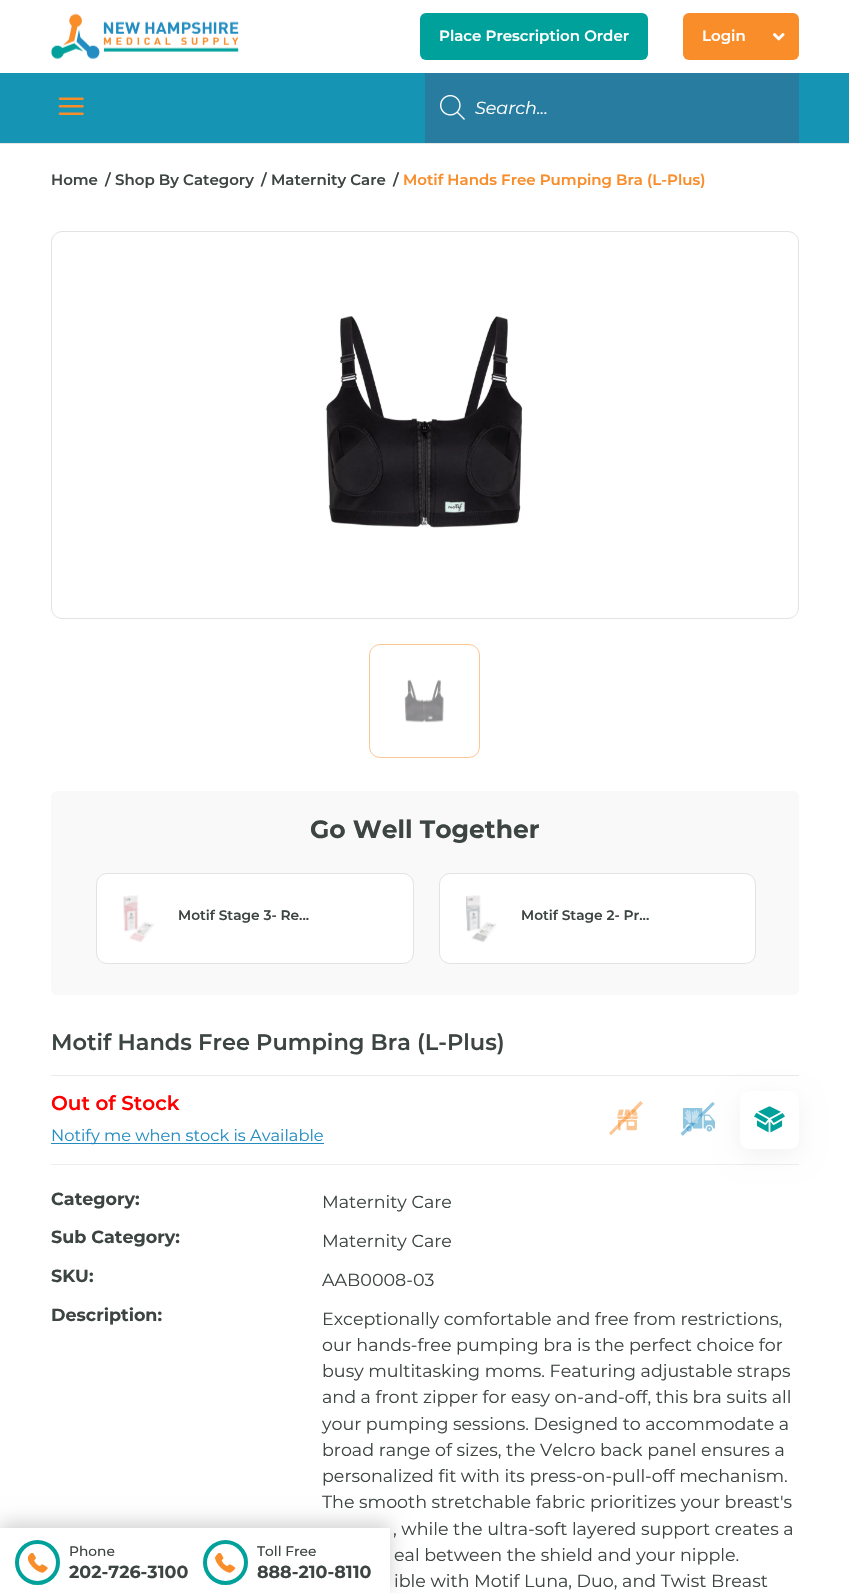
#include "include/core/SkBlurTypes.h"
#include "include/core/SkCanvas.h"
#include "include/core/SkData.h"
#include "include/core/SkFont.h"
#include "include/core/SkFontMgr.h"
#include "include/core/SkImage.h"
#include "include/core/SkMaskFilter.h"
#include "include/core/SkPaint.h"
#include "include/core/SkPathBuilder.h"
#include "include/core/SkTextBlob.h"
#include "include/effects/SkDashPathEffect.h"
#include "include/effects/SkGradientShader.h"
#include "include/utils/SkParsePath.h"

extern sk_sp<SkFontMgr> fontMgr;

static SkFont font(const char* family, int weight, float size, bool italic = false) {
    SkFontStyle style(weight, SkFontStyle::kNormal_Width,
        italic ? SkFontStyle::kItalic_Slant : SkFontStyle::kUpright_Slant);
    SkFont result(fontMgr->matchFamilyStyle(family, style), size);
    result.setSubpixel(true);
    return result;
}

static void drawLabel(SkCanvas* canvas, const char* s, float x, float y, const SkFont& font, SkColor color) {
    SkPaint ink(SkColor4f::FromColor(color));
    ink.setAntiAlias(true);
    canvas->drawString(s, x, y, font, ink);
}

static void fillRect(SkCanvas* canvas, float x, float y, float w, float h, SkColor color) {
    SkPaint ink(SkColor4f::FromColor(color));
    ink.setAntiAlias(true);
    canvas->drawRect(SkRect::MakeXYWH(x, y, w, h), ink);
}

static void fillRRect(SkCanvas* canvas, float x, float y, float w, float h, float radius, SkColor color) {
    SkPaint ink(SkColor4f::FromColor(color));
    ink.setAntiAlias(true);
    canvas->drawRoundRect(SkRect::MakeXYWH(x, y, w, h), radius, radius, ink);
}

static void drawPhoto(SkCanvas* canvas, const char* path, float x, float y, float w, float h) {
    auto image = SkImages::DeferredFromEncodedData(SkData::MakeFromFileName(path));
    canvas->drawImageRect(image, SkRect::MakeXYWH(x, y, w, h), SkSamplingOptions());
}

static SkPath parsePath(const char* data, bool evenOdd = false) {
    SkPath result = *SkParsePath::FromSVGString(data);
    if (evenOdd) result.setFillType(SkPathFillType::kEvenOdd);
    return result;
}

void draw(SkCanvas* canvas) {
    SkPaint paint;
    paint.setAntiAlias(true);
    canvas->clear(0xFFFFFFFF);
    drawPhoto(canvas, "assets/img1.png", 51, 13, 188, 46);
    fillRRect(canvas, 420, 13, 228, 47, 6, 0xFF00A19B);
    SkFont font1 = font("Montserrat", 600, 15);
    drawLabel(canvas, "Place Prescription Order", 439, 41, font1, 0xFFFFFFFF);
    fillRRect(canvas, 683, 13, 116, 47, 6, 0xFFF88D2A);
    drawPhoto(canvas, "assets/img2.png", 773, 33, 12, 8);
    drawLabel(canvas, "Login", 702, 41, font1, 0xFFFFFFFF);
    canvas->save();
    canvas->clipPath(parsePath("M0 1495H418V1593H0ZM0 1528H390V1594H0Z", true), true);
    paint.setColor(0x2E000000);
    paint.setMaskFilter(SkMaskFilter::MakeBlur(kNormal_SkBlurStyle, 9));
    canvas->drawRect(SkRect::MakeXYWH(0, 1523, 390, 66), paint);
    paint.setMaskFilter(nullptr);
    canvas->restore();
    drawPhoto(canvas, "assets/img3.png", 28, 1553, 20, 20);
    paint.setStroke(true);
    paint.setStrokeWidth(4);
    paint.setColor(0xFF00A19B);
    canvas->drawCircle(37.5f, 1562.5f, 20.5f, paint);
    SkFont font2 = font("Montserrat", 500, 13.75f);
    drawLabel(canvas, "Phone", 69, 1556, font2, 0xFF3D4543);
    SkFont font3 = font("Montserrat", 700, 17.5f);
    drawLabel(canvas, "202-726-3100", 69, 1578, font3, 0xFF3D4543);
    drawPhoto(canvas, "assets/img4.png", 215, 1553, 21, 20);
    canvas->drawCircle(225.5f, 1562.5f, 20.5f, paint);
    drawLabel(canvas, "Toll Free", 257, 1556, font2, 0xFF3D4543);
    drawLabel(canvas, "888-210-8110", 257, 1578, font3, 0xFF3D4543);
    fillRect(canvas, 0, 143, 849, 1, 0xFFE6E6E6);
    fillRect(canvas, 0, 73, 849, 70, 0xFF1694B3);
    drawPhoto(canvas, "assets/img5.png", 58, 97, 26, 18);
    fillRect(canvas, 425, 73, 374, 70, 0xFF277C9F);
    drawPhoto(canvas, "assets/img6.png", 440, 95, 25, 25);
    SkFont font4 = font("Montserrat", 400, 17.5f, true);
    drawLabel(canvas, "Search...", 475, 114, font4, 0xFFFFFFFF);
    drawLabel(canvas, "Home", 51, 185, font1, 0xFF3D4543);
    drawLabel(canvas, "/", 105, 185, font1, 0xFF3D4543);
    drawLabel(canvas, "Shop By Category", 115, 185, font1, 0xFF3D4543);
    drawLabel(canvas, "/", 261, 185, font1, 0xFF3D4543);
    drawLabel(canvas, "Maternity Care", 271, 185, font1, 0xFF3D4543);
    drawLabel(canvas, "/", 393, 185, font1, 0xFF3D4543);
    drawLabel(canvas, "Motif Hands Free Pumping Bra (L-Plus)", 403, 185, font1, 0xFFF88D2A);
    paint.setStrokeWidth(1);
    paint.setColor(0xFFE3E3E3);
    canvas->drawRoundRect(SkRect::MakeXYWH(51.5f, 231.5f, 747, 387), 10.5f, 10.5f, paint);
    drawPhoto(canvas, "assets/img7.png", 325, 316, 198, 212);
    paint.setColor(0xFFFCC695);
    canvas->drawRoundRect(SkRect::MakeXYWH(369.5f, 644.5f, 110, 113), 10.5f, 10.5f, paint);
    drawPhoto(canvas, "assets/img8.png", 404, 679, 40, 44);
    fillRRect(canvas, 51, 791, 748, 204, 6, 0xFFF9F9F9);
    SkFont font5 = font("Montserrat", 700, 25);
    drawLabel(canvas, "Go Well Together", 310, 838, font5, 0xFF3D4543);
    paint.setStroke(false);
    paint.setColor(0xFFFFFFFF);
    canvas->drawRoundRect(SkRect::MakeXYWH(96.5f, 873.5f, 317, 90), 10.5f, 10.5f, paint);
    paint.setStroke(true);
    paint.setColor(0xFFE3E3E3);
    canvas->drawRoundRect(SkRect::MakeXYWH(96.5f, 873.5f, 317, 90), 10.5f, 10.5f, paint);
    drawPhoto(canvas, "assets/img9.png", 123, 895, 31, 48);
    SkFont font6 = font("Montserrat", 600, 13.75f);
    drawLabel(canvas, "Motif Stage 3- Re...", 178, 920, font6, 0xFF3D4543);
    paint.setStroke(false);
    paint.setColor(0xFFFFFFFF);
    canvas->drawRoundRect(SkRect::MakeXYWH(439.5f, 873.5f, 316, 90), 10.5f, 10.5f, paint);
    paint.setStroke(true);
    paint.setColor(0xFFE3E3E3);
    canvas->drawRoundRect(SkRect::MakeXYWH(439.5f, 873.5f, 316, 90), 10.5f, 10.5f, paint);
    drawPhoto(canvas, "assets/img10.png", 466, 895, 31, 48);
    drawLabel(canvas, "Motif Stage 2- Pr...", 521, 920, font6, 0xFF3D4543);
    fillRect(canvas, 51, 1075, 748, 1, 0xFFEAEAEA);
    SkFont font7 = font("Montserrat", 600, 22.5f);
    drawLabel(canvas, "Motif Hands Free Pumping Bra (L-Plus)", 51, 1050, font7, 0xFF3D4543);
    fillRect(canvas, 51, 1164, 748, 1, 0xFFEEEEEE);
    SkFont font8 = font("Montserrat", 600, 20);
    drawLabel(canvas, "Out of Stock", 51, 1110, font8, 0xFFFF0000);
    fillRect(canvas, 51, 1143, 273, 1, 0xFF238DC1);
    SkFont font9 = font("Montserrat", 400, 16.25f);
    drawLabel(canvas, "Notify me when stock is Available", 51, 1141, font9, 0xFF238DC1);
    paint.setStroke(false);
    paint.setColor(0xFFFCC695);
    canvas->drawPath(parsePath("M609 1133L640.5 1101L643 1103.5L611 1135.5Z"), paint);
    paint.setColor(0xFFFFFFFF);
    canvas->drawPath(parsePath("M611 1135.5L643 1103.5L644.5 1105L612.5 1137Z"), paint);
    drawPhoto(canvas, "assets/img11.png", 617, 1109, 21, 22);
    paint.setColor(0x0D000000);
    paint.setMaskFilter(SkMaskFilter::MakeBlur(kNormal_SkBlurStyle, 12.5f));
    canvas->drawRoundRect(SkRect::MakeXYWH(740, 1099, 59, 57), 9, 9, paint);
    paint.setMaskFilter(nullptr);
    paint.setColor(0xFF91C6E0);
    canvas->drawPath(parsePath("M680.5 1133.5L712.5 1102L715 1104L683 1136Z"), paint);
    paint.setColor(0xFFFFFFFF);
    canvas->drawPath(parsePath("M683 1136L715 1104L716.5 1105.5L684.5 1137.5Z"), paint);
    drawPhoto(canvas, "assets/img12.png", 683, 1108, 32, 24);
    fillRRect(canvas, 740, 1091, 59, 58, 9, 0xFFFFFFFF);
    drawPhoto(canvas, "assets/img13.png", 754, 1106, 31, 27);
    drawLabel(canvas, "Category:", 51, 1205, font3, 0xFF3D4543);
    SkFont font10 = font("Montserrat", 400, 17.5f);
    drawLabel(canvas, "Maternity Care", 322, 1208, font10, 0xFF3D4543);
    drawLabel(canvas, "Sub Category:", 51, 1243, font3, 0xFF3D4543);
    drawLabel(canvas, "Maternity Care", 322, 1247, font10, 0xFF3D4543);
    drawLabel(canvas, "SKU:", 51, 1282, font3, 0xFF3D4543);
    drawLabel(canvas, "AAB0008-03", 322, 1286, font10, 0xFF3D4543);
    drawLabel(canvas, "Description:", 51, 1321, font3, 0xFF3D4543);
    drawLabel(canvas, "Exceptionally comfortable and free from restrictions,", 322, 1325, font10, 0xFF3D4543);
    drawLabel(canvas, "our hands-free pumping bra is the perfect choice for", 322, 1351, font10, 0xFF3D4543);
    drawLabel(canvas, "busy multitasking moms. Featuring adjustable straps", 322, 1377, font10, 0xFF3D4543);
    drawLabel(canvas, "and a front zipper for easy on-and-off, this bra suits all", 322, 1403, font10, 0xFF3D4543);
    drawLabel(canvas, "your pumping sessions. Designed to accommodate a", 322, 1430, font10, 0xFF3D4543);
    drawLabel(canvas, "broad range of sizes, the Velcro back panel ensures a", 322, 1456, font10, 0xFF3D4543);
    drawLabel(canvas, "personalized fit with its press-on-pull-off mechanism.", 322, 1482, font10, 0xFF3D4543);
    drawLabel(canvas, "The smooth stretchable fabric prioritizes your breast's", 322, 1508, font10, 0xFF3D4543);
    drawLabel(canvas, ", while the ultra-soft layered support creates a", 393, 1535, font10, 0xFF3D4543);
    drawLabel(canvas, "eal between the shield and your nipple.", 394, 1561, font10, 0xFF3D4543);
    drawLabel(canvas, "ible with Motif Luna, Duo, and Twist Breast", 394, 1587, font10, 0xFF3D4543);
}
